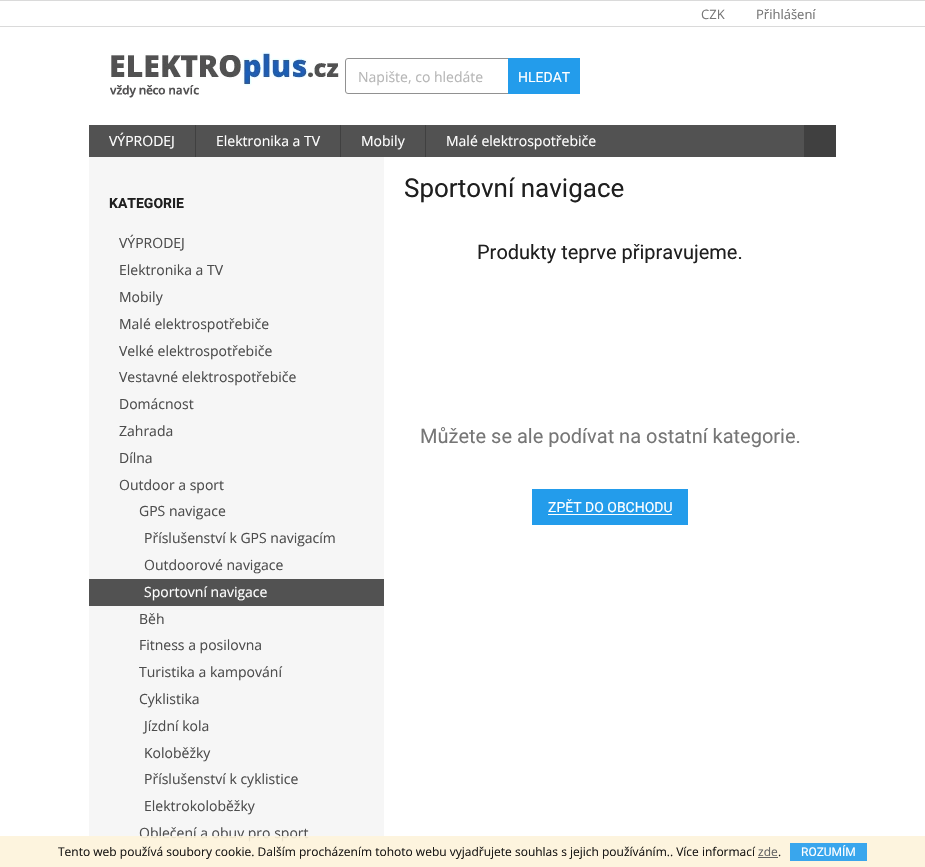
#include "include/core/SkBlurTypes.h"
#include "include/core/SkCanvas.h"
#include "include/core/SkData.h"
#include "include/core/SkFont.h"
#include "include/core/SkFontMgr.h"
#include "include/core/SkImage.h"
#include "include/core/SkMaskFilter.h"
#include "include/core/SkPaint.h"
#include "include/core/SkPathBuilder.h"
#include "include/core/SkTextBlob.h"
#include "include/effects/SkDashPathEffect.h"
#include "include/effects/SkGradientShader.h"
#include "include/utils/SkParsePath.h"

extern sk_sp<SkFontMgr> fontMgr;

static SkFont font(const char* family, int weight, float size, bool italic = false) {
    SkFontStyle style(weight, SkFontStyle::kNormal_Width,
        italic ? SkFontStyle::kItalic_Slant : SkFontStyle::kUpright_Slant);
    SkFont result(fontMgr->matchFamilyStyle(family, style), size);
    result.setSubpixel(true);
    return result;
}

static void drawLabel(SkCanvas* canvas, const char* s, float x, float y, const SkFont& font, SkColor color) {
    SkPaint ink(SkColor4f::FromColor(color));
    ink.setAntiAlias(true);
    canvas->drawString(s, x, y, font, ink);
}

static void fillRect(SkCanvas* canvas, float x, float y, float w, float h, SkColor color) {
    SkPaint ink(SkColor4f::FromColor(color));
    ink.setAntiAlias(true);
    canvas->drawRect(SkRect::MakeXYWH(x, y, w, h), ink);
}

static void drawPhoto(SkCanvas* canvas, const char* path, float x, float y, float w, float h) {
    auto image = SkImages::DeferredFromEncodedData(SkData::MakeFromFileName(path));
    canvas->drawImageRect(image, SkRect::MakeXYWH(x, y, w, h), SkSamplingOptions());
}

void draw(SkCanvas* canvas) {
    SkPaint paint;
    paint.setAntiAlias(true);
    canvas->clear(0xFFFFFFFF);
    fillRect(canvas, 0, 0, 925, 1, 0xFFDADADA);
    fillRect(canvas, 0, 26, 925, 1, 0xFFDADADA);
    SkFont font1 = font("Open Sans", 400, 13);
    drawLabel(canvas, "CZK", 701, 19, font1, 0xFF767676);
    drawLabel(canvas, "Přihlášení", 756, 19, font1, 0xFF767676);
    drawPhoto(canvas, "assets/img1.png", 110, 52, 229, 46);
    paint.setStroke(true);
    paint.setStrokeWidth(1);
    paint.setColor(0xFF919191);
    canvas->drawRoundRect(SkRect::MakeXYWH(345.5f, 58.5f, 234, 35), 2.5f, 2.5f, paint);
    SkFont font2 = font("Open Sans", 400, 14);
    drawLabel(canvas, "Napište, co hledáte", 358, 82, font2, 0xFFB6B6B6);
    fillRect(canvas, 508, 58, 72, 36, 0xFF239CEB);
    SkFont font3 = font("Roboto", 400, 14);
    drawLabel(canvas, "HLEDAT", 518, 82, font3, 0xFFFFFFFF);
    fillRect(canvas, 89, 125, 715, 32, 0xFF525252);
    drawLabel(canvas, "VÝPRODEJ", 109, 146, font2, 0xFFFFFFFF);
    fillRect(canvas, 195, 125, 1, 32, 0xFF404040);
    drawLabel(canvas, "Elektronika a TV", 216, 146, font2, 0xFFFFFFFF);
    fillRect(canvas, 340, 125, 1, 32, 0xFF404040);
    drawLabel(canvas, "Mobily", 361, 146, font2, 0xFFFFFFFF);
    fillRect(canvas, 425, 125, 1, 32, 0xFF404040);
    drawLabel(canvas, "Malé elektrospotřebiče", 446, 146, font2, 0xFFFFFFFF);
    fillRect(canvas, 804, 125, 32, 32, 0xFF404040);
    fillRect(canvas, 89, 157, 295, 710, 0xFFF6F6F6);
    SkFont font4 = font("Roboto", 700, 14);
    drawLabel(canvas, "KATEGORIE", 109, 208, font4, 0xFF1F1F1F);
    drawLabel(canvas, "VÝPRODEJ", 119, 248, font2, 0xFF4D4D4D);
    drawLabel(canvas, "Elektronika a TV", 119, 275, font2, 0xFF4D4D4D);
    drawLabel(canvas, "Mobily", 119, 302, font2, 0xFF4D4D4D);
    drawLabel(canvas, "Malé elektrospotřebiče", 119, 329, font2, 0xFF4D4D4D);
    drawLabel(canvas, "Velké elektrospotřebiče", 119, 356, font2, 0xFF4D4D4D);
    drawLabel(canvas, "Vestavné elektrospotřebiče", 119, 382, font2, 0xFF4D4D4D);
    drawLabel(canvas, "Domácnost", 119, 409, font2, 0xFF4D4D4D);
    drawLabel(canvas, "Zahrada", 119, 436, font2, 0xFF4D4D4D);
    drawLabel(canvas, "Dílna", 119, 463, font2, 0xFF4D4D4D);
    drawLabel(canvas, "Outdoor a sport", 119, 490, font2, 0xFF4D4D4D);
    drawLabel(canvas, "GPS navigace", 139, 516, font2, 0xFF4D4D4D);
    drawLabel(canvas, "Příslušenství k GPS navigacím", 144, 543, font2, 0xFF4D4D4D);
    drawLabel(canvas, "Outdoorové navigace", 144, 570, font2, 0xFF4D4D4D);
    fillRect(canvas, 89, 579, 295, 27, 0xFF525252);
    drawLabel(canvas, "Sportovní navigace", 144, 597, font2, 0xFFFFFFFF);
    drawLabel(canvas, "Běh", 139, 624, font2, 0xFF4D4D4D);
    drawLabel(canvas, "Fitness a posilovna", 139, 650, font2, 0xFF4D4D4D);
    drawLabel(canvas, "Turistika a kampování", 139, 677, font2, 0xFF4D4D4D);
    drawLabel(canvas, "Cyklistika", 139, 704, font2, 0xFF4D4D4D);
    drawLabel(canvas, "Jízdní kola", 144, 731, font2, 0xFF4D4D4D);
    drawLabel(canvas, "Koloběžky", 144, 758, font2, 0xFF4D4D4D);
    drawLabel(canvas, "Příslušenství k cyklistice", 144, 784, font2, 0xFF4D4D4D);
    drawLabel(canvas, "Elektrokoloběžky", 144, 811, font2, 0xFF4D4D4D);
    drawLabel(canvas, "Oblečení a obuv pro sport", 139, 838, font2, 0xFF4D4D4D);
    SkFont font5 = font("Roboto", 400, 26);
    drawLabel(canvas, "Sportovní navigace", 404, 197, font5, 0xFF1F1F1F);
    SkFont font6 = font("Roboto", 400, 20);
    drawLabel(canvas, "Produkty teprve připravujeme.", 477, 259, font6, 0xFF1F1F1F);
    drawLabel(canvas, "Můžete se ale podívat na ostatní kategorie.", 420, 443, font6, 0xFF767676);
    fillRect(canvas, 532, 489, 156, 36, 0xFF239CEB);
    drawLabel(canvas, "ZPĚT DO OBCHODU", 548, 512, font3, 0xFFFFFFFF);
    fillRect(canvas, 548, 514, 124, 1, 0xFFFFFFFF);
    fillRect(canvas, 0, 836, 925, 31, 0xE6FDF3DA);
    SkFont font7 = font("Open Sans", 400, 12);
    drawLabel(canvas, "Tento web používá soubory cookie. Dalším procházením tohoto webu vyjadřujete souhlas s jejich používáním.. Více informací", 58, 856, font7, 0xFF191816);
    drawLabel(canvas, "zde", 758, 856, font7, 0xFF636363);
    fillRect(canvas, 758, 857, 20, 1, 0xFF636363);
    drawLabel(canvas, ".", 778, 856, font7, 0xFF1F1F1F);
    fillRect(canvas, 790, 843, 77, 18, 0xFF39A6ED);
    SkFont font8 = font("Roboto", 400, 12);
    drawLabel(canvas, "ROZUMÍM", 801, 856, font8, 0xFFFFFFFF);
}
